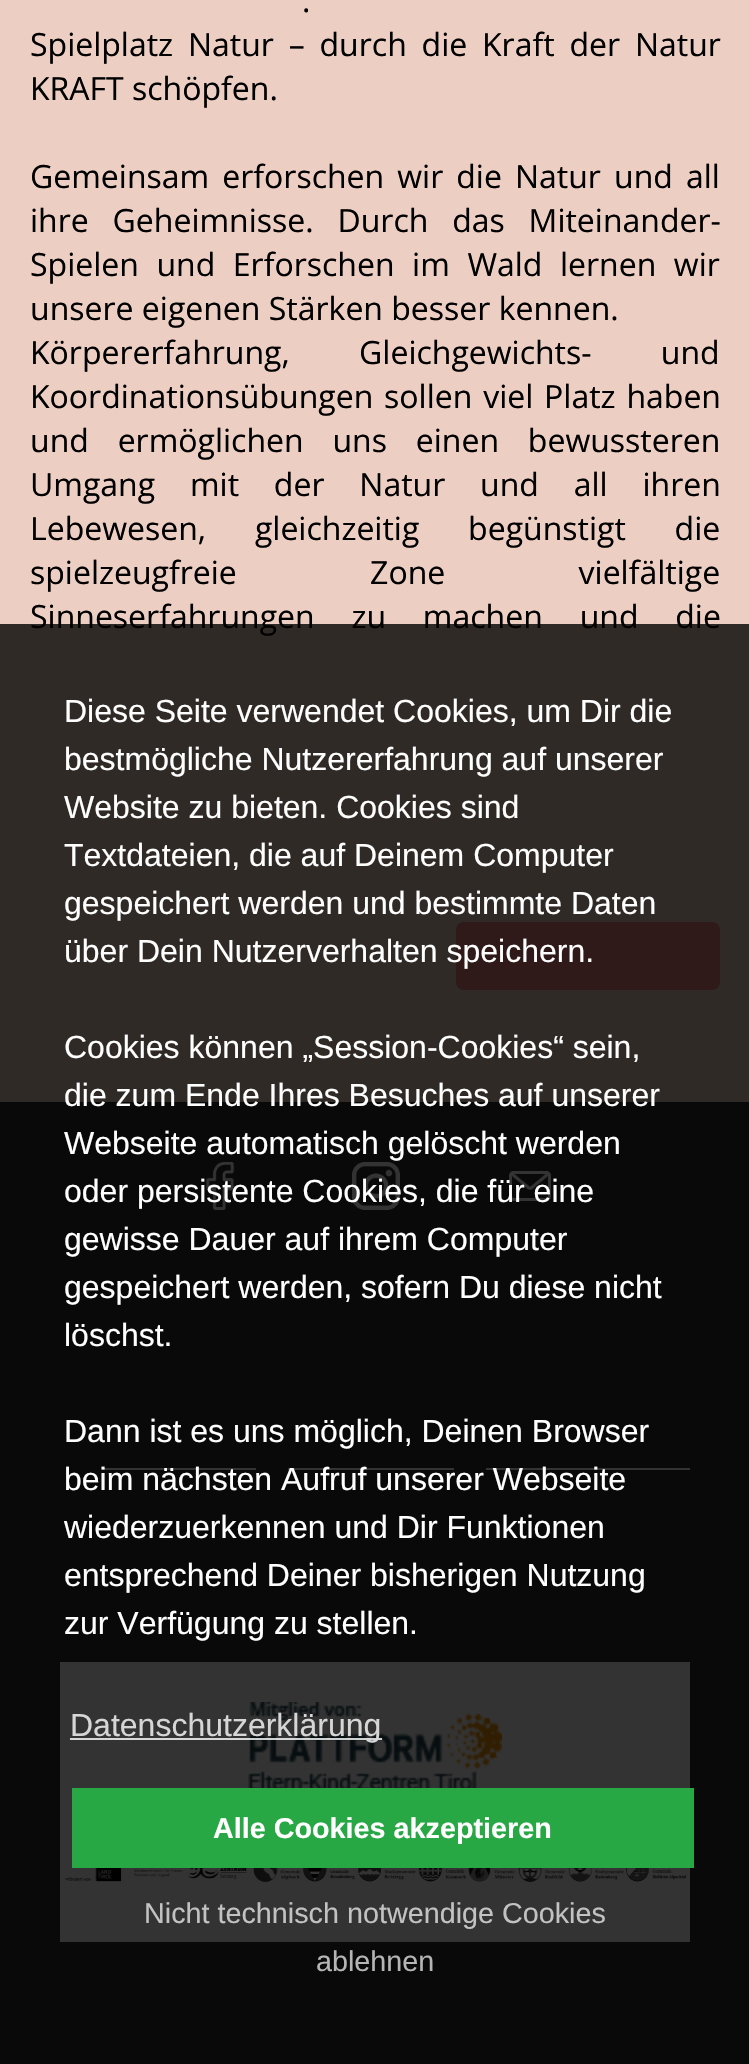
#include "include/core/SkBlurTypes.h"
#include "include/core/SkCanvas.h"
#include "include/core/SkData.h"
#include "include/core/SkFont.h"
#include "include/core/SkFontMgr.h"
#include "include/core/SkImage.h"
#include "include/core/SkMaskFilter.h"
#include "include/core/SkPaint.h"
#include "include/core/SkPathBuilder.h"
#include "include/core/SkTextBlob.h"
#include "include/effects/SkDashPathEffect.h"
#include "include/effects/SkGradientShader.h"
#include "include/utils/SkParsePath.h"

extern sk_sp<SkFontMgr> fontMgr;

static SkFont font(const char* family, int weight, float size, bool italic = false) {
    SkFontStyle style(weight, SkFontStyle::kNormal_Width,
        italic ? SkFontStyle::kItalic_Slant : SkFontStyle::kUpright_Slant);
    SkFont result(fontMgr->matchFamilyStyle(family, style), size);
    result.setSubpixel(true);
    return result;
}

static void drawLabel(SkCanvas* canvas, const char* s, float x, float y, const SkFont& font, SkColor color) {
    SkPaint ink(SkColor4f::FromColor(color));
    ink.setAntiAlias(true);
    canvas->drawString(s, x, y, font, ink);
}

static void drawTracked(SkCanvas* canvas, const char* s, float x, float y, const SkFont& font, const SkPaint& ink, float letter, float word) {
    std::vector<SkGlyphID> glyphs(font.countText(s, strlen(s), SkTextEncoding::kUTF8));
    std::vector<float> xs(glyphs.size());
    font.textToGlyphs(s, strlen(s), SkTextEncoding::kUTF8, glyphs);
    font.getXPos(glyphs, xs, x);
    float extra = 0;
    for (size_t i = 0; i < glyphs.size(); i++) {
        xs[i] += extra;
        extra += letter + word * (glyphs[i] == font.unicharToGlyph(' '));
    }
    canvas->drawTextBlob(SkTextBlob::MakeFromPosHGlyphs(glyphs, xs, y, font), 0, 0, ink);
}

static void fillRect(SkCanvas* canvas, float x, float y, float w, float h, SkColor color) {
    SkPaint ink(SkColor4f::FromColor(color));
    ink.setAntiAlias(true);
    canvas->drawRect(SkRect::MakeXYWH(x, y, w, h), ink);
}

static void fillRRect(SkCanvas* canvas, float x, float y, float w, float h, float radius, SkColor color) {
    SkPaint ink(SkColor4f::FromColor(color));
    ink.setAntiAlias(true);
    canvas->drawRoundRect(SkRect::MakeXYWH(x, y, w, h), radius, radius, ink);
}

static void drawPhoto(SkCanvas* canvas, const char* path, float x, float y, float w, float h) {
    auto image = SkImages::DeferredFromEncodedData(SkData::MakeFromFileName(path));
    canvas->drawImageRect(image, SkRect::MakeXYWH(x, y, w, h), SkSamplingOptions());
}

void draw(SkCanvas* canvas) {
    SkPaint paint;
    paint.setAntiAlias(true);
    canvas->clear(0xFFECCEC3);
    SkFont font1 = font("Open Sans", 400, 32);
    drawLabel(canvas, ".", 302, 12, font1, 0xFF000000);
    paint.setColor(0xFF000000);
    drawTracked(canvas, "Spielplatz Natur – durch die Kraft der Natur", 30, 56, font1, paint, 0, 6.5f);
    drawLabel(canvas, "KRAFT schöpfen.", 30, 100, font1, 0xFF000000);
    drawTracked(canvas, "Gemeinsam erforschen wir die Natur und all", 30, 188, font1, paint, 0, 4.75f);
    drawTracked(canvas, "ihre Geheimnisse. Durch das Miteinander-", 30, 232, font1, paint, 0, 15.5f);
    drawTracked(canvas, "Spielen und Erforschen im Wald lernen wir", 30, 276, font1, paint, 0, 9.25f);
    drawLabel(canvas, "unsere eigenen Stärken besser kennen.", 30, 320, font1, 0xFF000000);
    drawTracked(canvas, "Körpererfahrung, Gleichgewichts- und", 30, 364, font1, paint, 0, 61);
    drawTracked(canvas, "Koordinationsübungen sollen viel Platz haben", 30, 408, font1, paint, 0, 2.5f);
    drawTracked(canvas, "und ermöglichen uns einen bewussteren", 30, 452, font1, paint, 0, 20.5f);
    drawTracked(canvas, "Umgang mit der Natur und all ihren", 30, 496, font1, paint, 0, 26.5f);
    drawTracked(canvas, "Lebewesen, gleichzeitig begünstigt die", 30, 540, font1, paint, 0, 40.5f);
    drawTracked(canvas, "spielzeugfreie Zone vielfältige", 30, 584, font1, paint, 0, 125);
    drawTracked(canvas, "Sinneserfahrungen zu machen und die", 30, 628, font1, paint, 0, 28.5f);
    fillRRect(canvas, 456, 922, 264, 68, 8, 0xFFE7807B);
    fillRect(canvas, 0, 1102, 749, 962, 0xFF2A2B2F);
    drawPhoto(canvas, "assets/img1.png", 205, 1162, 30, 48);
    drawPhoto(canvas, "assets/img2.png", 352, 1162, 48, 48);
    drawPhoto(canvas, "assets/img3.png", 509, 1171, 42, 30);
    fillRect(canvas, 104, 1468, 152, 2, 0xFFFFFFFF);
    fillRect(canvas, 288, 1468, 166, 2, 0xFFFFFFFF);
    fillRect(canvas, 486, 1468, 204, 2, 0xFFFFFFFF);
    fillRect(canvas, 60, 1662, 630, 280, 0xFFFFFFFF);
    drawPhoto(canvas, "assets/img4.png", 248, 1702, 254, 86);
    drawPhoto(canvas, "assets/img5.png", 64, 1854, 623, 28);
    fillRect(canvas, 0, 624, 749, 1440, 0xCC000000);
    SkFont font2 = font("Liberation Sans", 400, 32);
    drawLabel(canvas, "Diese Seite verwendet Cookies, um Dir die", 64, 722, font2, 0xFFFFFFFF);
    drawLabel(canvas, "bestmögliche Nutzererfahrung auf unserer", 64, 770, font2, 0xFFFFFFFF);
    drawLabel(canvas, "Website zu bieten. Cookies sind", 64, 818, font2, 0xFFFFFFFF);
    drawLabel(canvas, "Textdateien, die auf Deinem Computer", 64, 866, font2, 0xFFFFFFFF);
    drawLabel(canvas, "gespeichert werden und bestimmte Daten", 64, 914, font2, 0xFFFFFFFF);
    drawLabel(canvas, "über Dein Nutzerverhalten speichern.", 64, 962, font2, 0xFFFFFFFF);
    drawLabel(canvas, "Cookies können „Session-Cookies“ sein,", 64, 1058, font2, 0xFFFFFFFF);
    drawLabel(canvas, "die zum Ende Ihres Besuches auf unserer", 64, 1106, font2, 0xFFFFFFFF);
    drawLabel(canvas, "Webseite automatisch gelöscht werden", 64, 1154, font2, 0xFFFFFFFF);
    drawLabel(canvas, "oder persistente Cookies, die für eine", 64, 1202, font2, 0xFFFFFFFF);
    drawLabel(canvas, "gewisse Dauer auf ihrem Computer", 64, 1250, font2, 0xFFFFFFFF);
    drawLabel(canvas, "gespeichert werden, sofern Du diese nicht", 64, 1298, font2, 0xFFFFFFFF);
    drawLabel(canvas, "löschst.", 64, 1346, font2, 0xFFFFFFFF);
    drawLabel(canvas, "Dann ist es uns möglich, Deinen Browser", 64, 1442, font2, 0xFFFFFFFF);
    drawLabel(canvas, "beim nächsten Aufruf unserer Webseite", 64, 1490, font2, 0xFFFFFFFF);
    drawLabel(canvas, "wiederzuerkennen und Dir Funktionen", 64, 1538, font2, 0xFFFFFFFF);
    drawLabel(canvas, "entsprechend Deiner bisherigen Nutzung", 64, 1586, font2, 0xFFFFFFFF);
    drawLabel(canvas, "zur Verfügung zu stellen.", 64, 1634, font2, 0xFFFFFFFF);
    fillRect(canvas, 70, 1738, 312, 2, 0xCCFFFFFF);
    drawLabel(canvas, "Datenschutzerklärung", 70, 1736, font2, 0xFFD6D6D6);
    fillRect(canvas, 72, 1788, 622, 80, 0xFF28A745);
    SkFont font3 = font("Liberation Sans", 700, 28.75f);
    drawLabel(canvas, "Alle Cookies akzeptieren", 213, 1838, font3, 0xFFFFFFFF);
    SkFont font4 = font("Liberation Sans", 400, 28.75f);
    drawLabel(canvas, "Nicht technisch notwendige Cookies", 144, 1923, font4, 0xFFC2C2C2);
    drawLabel(canvas, "ablehnen", 316, 1971, font4, 0xFFB5B5B5);
}
